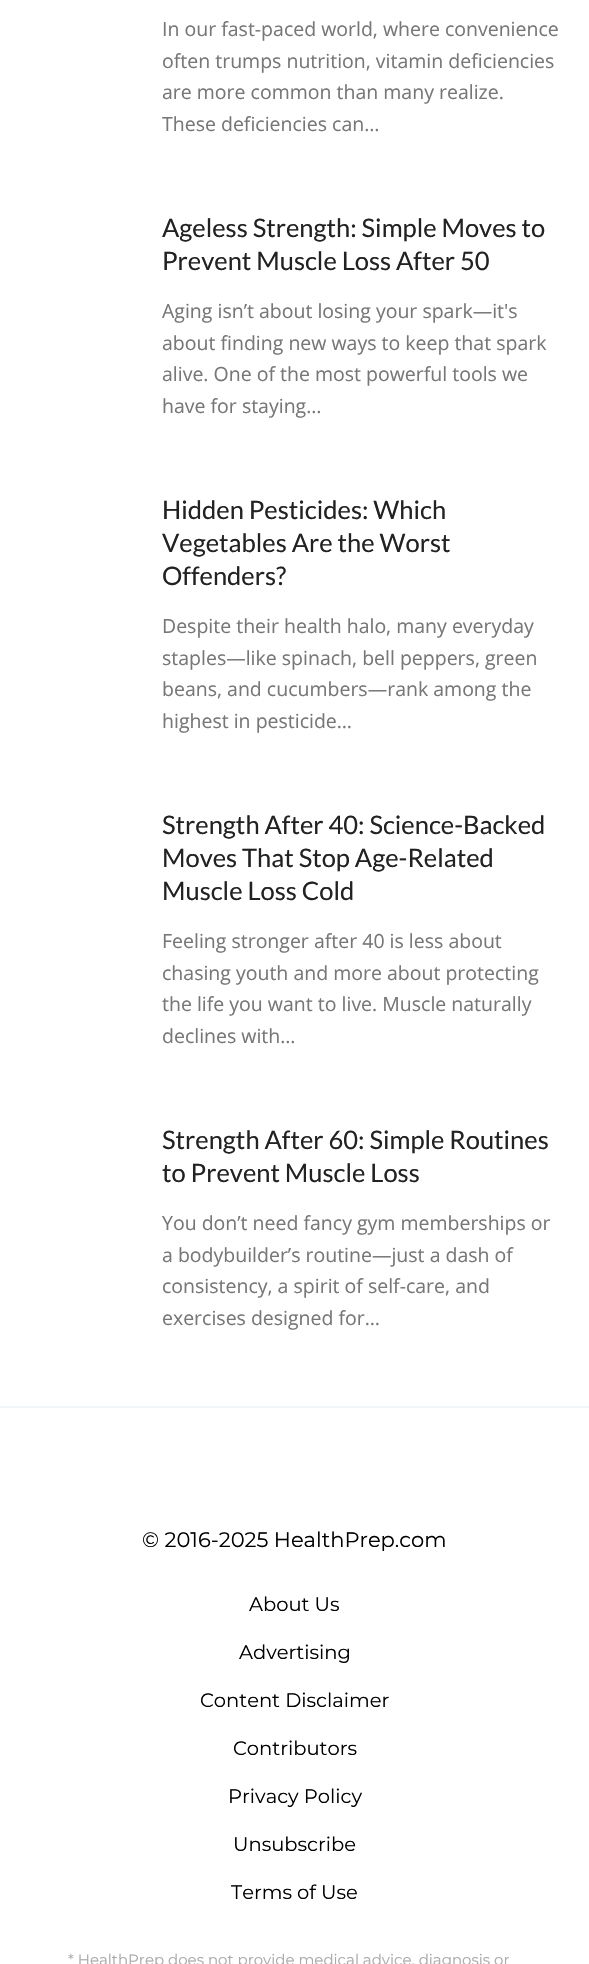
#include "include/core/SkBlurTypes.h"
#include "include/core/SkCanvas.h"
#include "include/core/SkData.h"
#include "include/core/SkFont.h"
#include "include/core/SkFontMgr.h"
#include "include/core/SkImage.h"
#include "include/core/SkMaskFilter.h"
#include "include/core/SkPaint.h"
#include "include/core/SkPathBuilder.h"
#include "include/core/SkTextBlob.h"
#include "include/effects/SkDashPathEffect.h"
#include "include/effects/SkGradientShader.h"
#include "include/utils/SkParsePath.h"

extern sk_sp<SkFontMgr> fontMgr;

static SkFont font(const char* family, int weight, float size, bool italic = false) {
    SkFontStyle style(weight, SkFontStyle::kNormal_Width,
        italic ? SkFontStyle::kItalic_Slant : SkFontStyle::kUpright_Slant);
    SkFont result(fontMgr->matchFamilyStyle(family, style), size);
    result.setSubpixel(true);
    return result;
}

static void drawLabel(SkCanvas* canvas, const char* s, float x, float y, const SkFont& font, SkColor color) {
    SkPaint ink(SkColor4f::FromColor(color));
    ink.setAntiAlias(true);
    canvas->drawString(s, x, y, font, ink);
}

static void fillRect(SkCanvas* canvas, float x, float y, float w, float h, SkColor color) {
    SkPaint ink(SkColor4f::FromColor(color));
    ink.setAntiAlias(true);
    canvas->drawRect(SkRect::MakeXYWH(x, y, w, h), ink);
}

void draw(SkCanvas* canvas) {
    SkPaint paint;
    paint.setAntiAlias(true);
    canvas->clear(0xFFFFFFFF);
    SkFont font1 = font("Open Sans", 400, 19.5f);
    drawLabel(canvas, "In our fast-paced world, where convenience", 162, 36, font1, 0xFF777777);
    drawLabel(canvas, "often trumps nutrition, vitamin deficiencies", 162, 68, font1, 0xFF777777);
    drawLabel(canvas, "are more common than many realize.", 162, 99, font1, 0xFF777777);
    drawLabel(canvas, "These deficiencies can…", 162, 131, font1, 0xFF777777);
    SkFont font2 = font("Lato", 400, 25.5f);
    drawLabel(canvas, "Ageless Strength: Simple Moves to", 162, 237, font2, 0xFF222222);
    drawLabel(canvas, "Prevent Muscle Loss After 50", 162, 270, font2, 0xFF222222);
    drawLabel(canvas, "Aging isn’t about losing your spark—it's", 162, 318, font1, 0xFF777777);
    drawLabel(canvas, "about finding new ways to keep that spark", 162, 350, font1, 0xFF777777);
    drawLabel(canvas, "alive. One of the most powerful tools we", 162, 381, font1, 0xFF777777);
    drawLabel(canvas, "have for staying…", 162, 413, font1, 0xFF777777);
    drawLabel(canvas, "Hidden Pesticides: Which", 162, 519, font2, 0xFF222222);
    drawLabel(canvas, "Vegetables Are the Worst", 162, 552, font2, 0xFF222222);
    drawLabel(canvas, "Offenders?", 162, 585, font2, 0xFF222222);
    drawLabel(canvas, "Despite their health halo, many everyday", 162, 633, font1, 0xFF777777);
    drawLabel(canvas, "staples—like spinach, bell peppers, green", 162, 665, font1, 0xFF777777);
    drawLabel(canvas, "beans, and cucumbers—rank among the", 162, 696, font1, 0xFF777777);
    drawLabel(canvas, "highest in pesticide…", 162, 728, font1, 0xFF777777);
    drawLabel(canvas, "Strength After 40: Science-Backed", 162, 834, font2, 0xFF222222);
    drawLabel(canvas, "Moves That Stop Age-Related", 162, 867, font2, 0xFF222222);
    drawLabel(canvas, "Muscle Loss Cold", 162, 900, font2, 0xFF222222);
    drawLabel(canvas, "Feeling stronger after 40 is less about", 162, 948, font1, 0xFF777777);
    drawLabel(canvas, "chasing youth and more about protecting", 162, 980, font1, 0xFF777777);
    drawLabel(canvas, "the life you want to live. Muscle naturally", 162, 1011, font1, 0xFF777777);
    drawLabel(canvas, "declines with…", 162, 1043, font1, 0xFF777777);
    drawLabel(canvas, "Strength After 60: Simple Routines", 162, 1149, font2, 0xFF222222);
    drawLabel(canvas, "to Prevent Muscle Loss", 162, 1182, font2, 0xFF222222);
    drawLabel(canvas, "You don’t need fancy gym memberships or", 162, 1230, font1, 0xFF777777);
    drawLabel(canvas, "a bodybuilder’s routine—just a dash of", 162, 1262, font1, 0xFF777777);
    drawLabel(canvas, "consistency, a spirit of self-care, and", 162, 1293, font1, 0xFF777777);
    drawLabel(canvas, "exercises designed for…", 162, 1325, font1, 0xFF777777);
    fillRect(canvas, 0, 1406, 589, 2, 0xFFF3F6F9);
    SkFont font3 = font("Montserrat", 400, 21);
    drawLabel(canvas, "© 2016-2025 HealthPrep.com", 142, 1547, font3, 0xFF000000);
    SkFont font4 = font("Montserrat", 400, 19.5f);
    drawLabel(canvas, "About Us", 249, 1611, font4, 0xFF000000);
    drawLabel(canvas, "Advertising", 239, 1659, font4, 0xFF000000);
    drawLabel(canvas, "Content Disclaimer", 200, 1707, font4, 0xFF000000);
    drawLabel(canvas, "Contributors", 233, 1755, font4, 0xFF000000);
    drawLabel(canvas, "Privacy Policy", 228, 1803, font4, 0xFF000000);
    drawLabel(canvas, "Unsubscribe", 233, 1851, font4, 0xFF000000);
    drawLabel(canvas, "Terms of Use", 231, 1899, font4, 0xFF000000);
    SkFont font5 = font("Montserrat", 400, 15);
    drawLabel(canvas, "* HealthPrep does not provide medical advice, diagnosis or", 68, 1965, font5, 0xFFA9A9A9);
}
